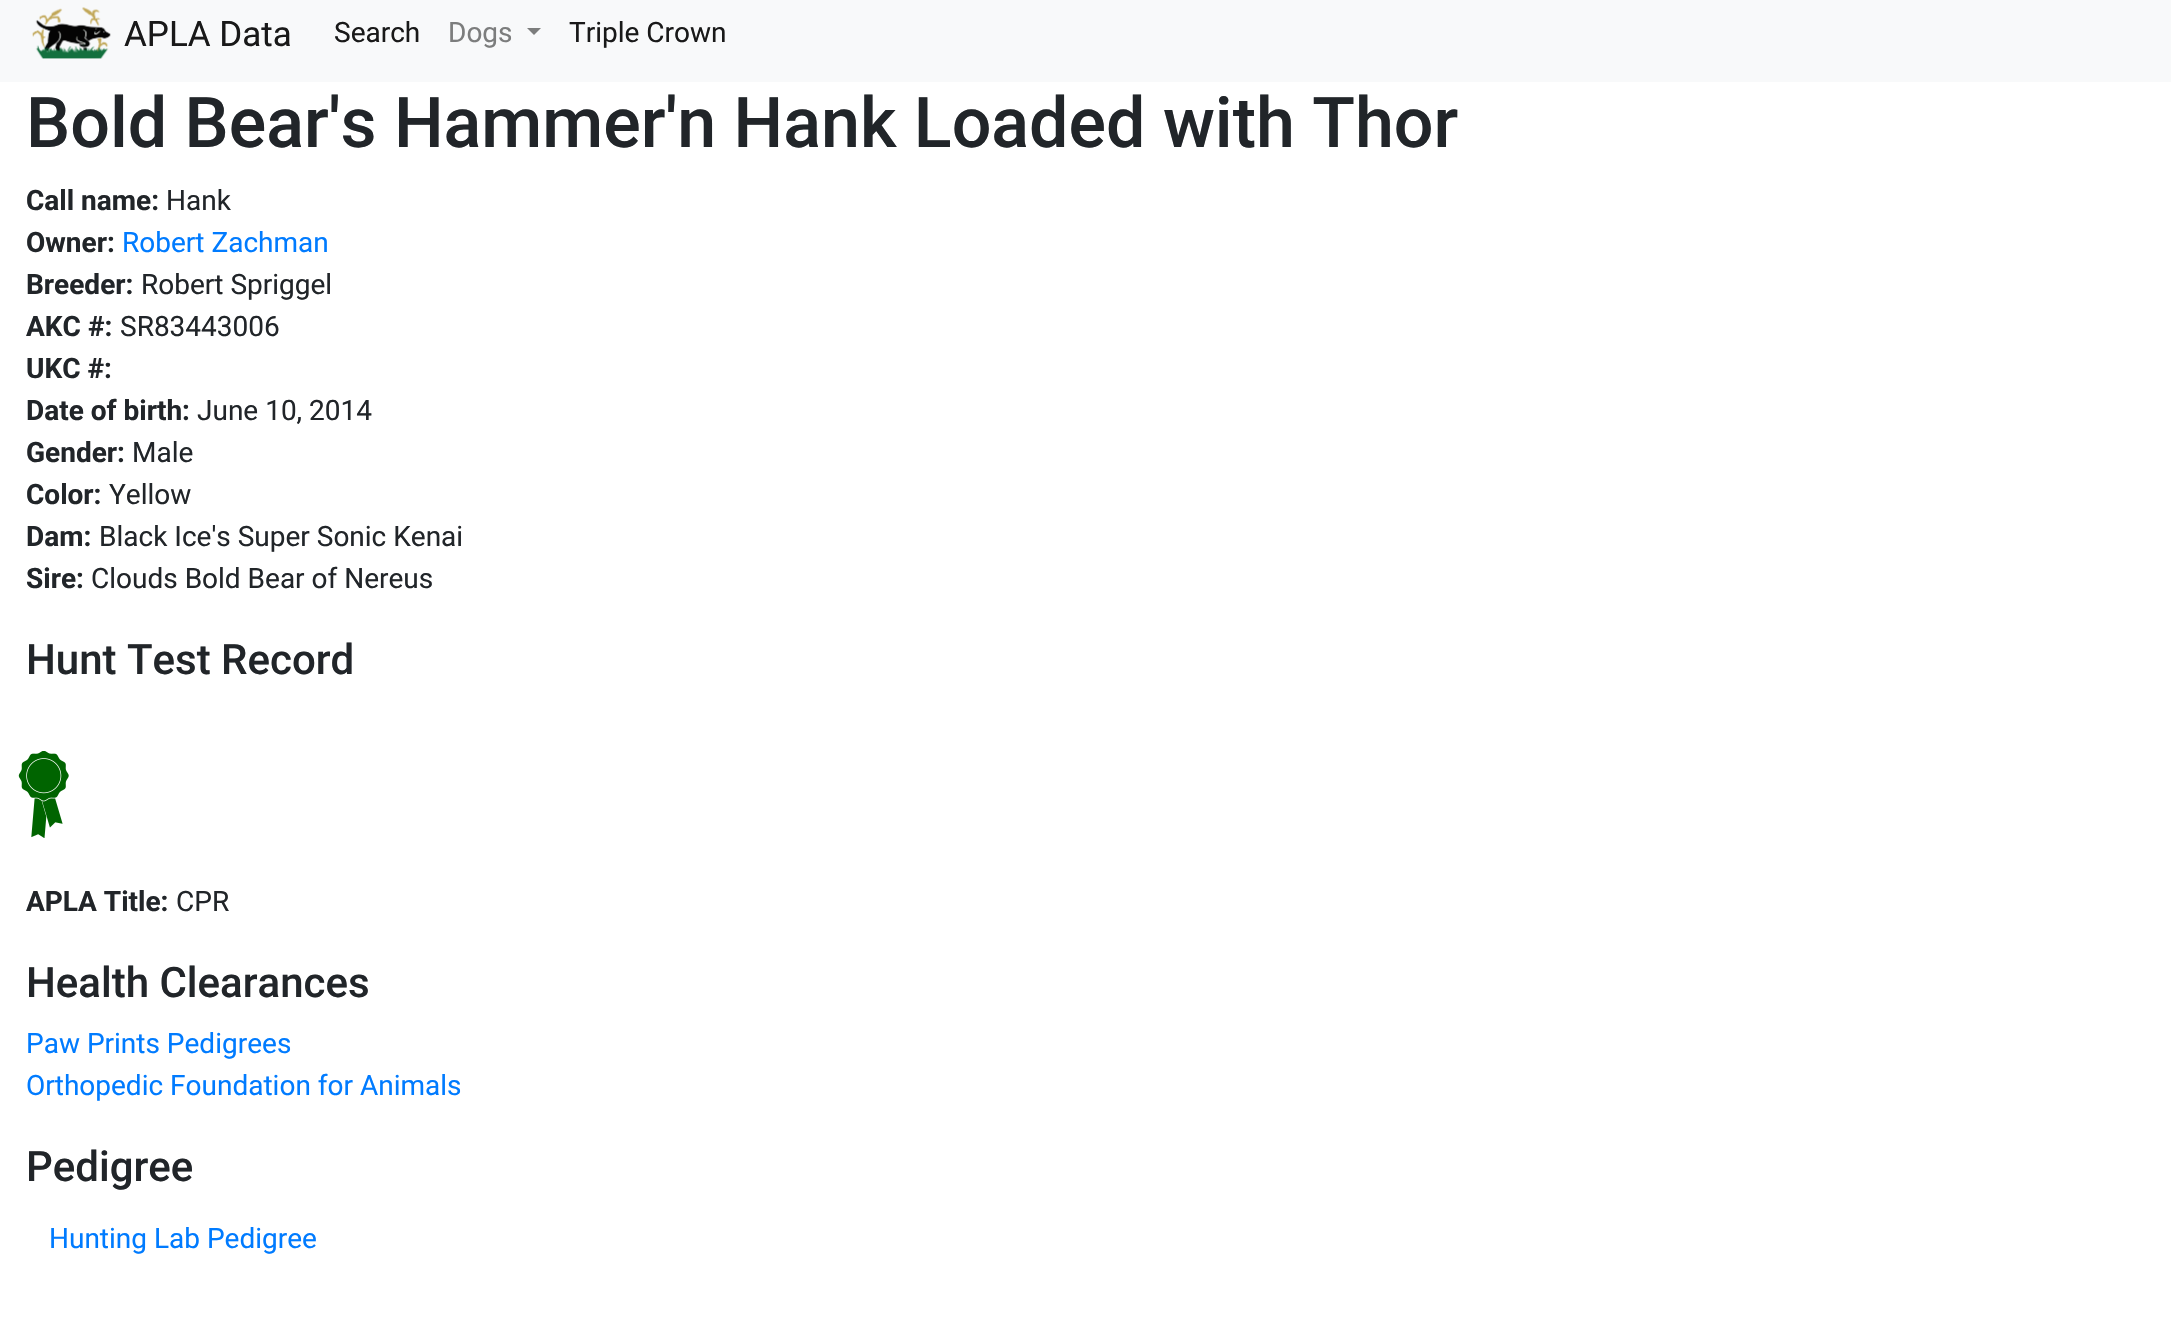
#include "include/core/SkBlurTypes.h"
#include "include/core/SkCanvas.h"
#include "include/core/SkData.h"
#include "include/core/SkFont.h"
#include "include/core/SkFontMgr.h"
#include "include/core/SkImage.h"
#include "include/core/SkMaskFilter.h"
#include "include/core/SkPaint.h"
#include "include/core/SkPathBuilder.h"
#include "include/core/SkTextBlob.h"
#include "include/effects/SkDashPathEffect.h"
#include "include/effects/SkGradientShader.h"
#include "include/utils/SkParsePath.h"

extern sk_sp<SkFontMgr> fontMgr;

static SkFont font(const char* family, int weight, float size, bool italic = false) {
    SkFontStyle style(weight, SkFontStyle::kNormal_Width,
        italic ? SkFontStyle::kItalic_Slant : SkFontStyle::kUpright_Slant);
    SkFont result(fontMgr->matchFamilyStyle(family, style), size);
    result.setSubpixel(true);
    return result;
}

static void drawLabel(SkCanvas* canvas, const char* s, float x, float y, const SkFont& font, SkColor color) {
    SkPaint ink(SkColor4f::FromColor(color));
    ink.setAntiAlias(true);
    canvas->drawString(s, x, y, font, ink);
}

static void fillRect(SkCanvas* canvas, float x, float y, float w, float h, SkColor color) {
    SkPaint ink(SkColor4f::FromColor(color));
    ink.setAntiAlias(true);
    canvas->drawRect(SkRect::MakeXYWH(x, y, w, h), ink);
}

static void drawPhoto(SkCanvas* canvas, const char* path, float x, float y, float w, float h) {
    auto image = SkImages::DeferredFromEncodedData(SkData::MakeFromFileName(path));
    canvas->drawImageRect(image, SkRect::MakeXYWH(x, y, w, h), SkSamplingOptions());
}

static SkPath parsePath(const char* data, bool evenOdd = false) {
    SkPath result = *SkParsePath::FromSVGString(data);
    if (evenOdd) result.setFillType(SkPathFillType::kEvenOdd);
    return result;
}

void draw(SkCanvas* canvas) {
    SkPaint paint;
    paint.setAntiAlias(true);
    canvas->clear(0xFFFFFFFF);
    fillRect(canvas, 0, 0, 2171, 82, 0xFFF8F9FA);
    drawPhoto(canvas, "assets/img1.png", 32, 7, 79, 52);
    SkFont font1 = font("Roboto", 400, 35);
    drawLabel(canvas, "APLA Data", 124, 46, font1, 0xFF191919);
    SkFont font2 = font("Roboto", 400, 28);
    drawLabel(canvas, "Search", 334, 42, font2, 0xFF191919);
    drawLabel(canvas, "Dogs", 448, 42, font2, 0xFF7C7D7D);
    paint.setColor(0xFF7C7D7D);
    canvas->drawPath(parsePath("M527 28H541L534 35Z"), paint);
    drawLabel(canvas, "Triple Crown", 569, 42, font2, 0xFF191919);
    SkFont font3 = font("Roboto", 500, 70);
    drawLabel(canvas, "Bold Bear's Hammer'n Hank Loaded with Thor", 26, 147, font3, 0xFF212529);
    SkFont font4 = font("Roboto", 700, 28);
    drawLabel(canvas, "Call name:", 26, 210, font4, 0xFF212529);
    drawLabel(canvas, "Hank", 166, 210, font2, 0xFF212529);
    drawLabel(canvas, "Owner:", 26, 252, font4, 0xFF212529);
    drawLabel(canvas, "Robert Zachman", 122, 252, font2, 0xFF007BFF);
    drawLabel(canvas, "Breeder:", 26, 294, font4, 0xFF212529);
    drawLabel(canvas, "Robert Spriggel", 141, 294, font2, 0xFF212529);
    drawLabel(canvas, "AKC #:", 26, 336, font4, 0xFF212529);
    drawLabel(canvas, "SR83443006", 120, 336, font2, 0xFF212529);
    drawLabel(canvas, "UKC #:", 26, 378, font4, 0xFF212529);
    drawLabel(canvas, "Date of birth:", 26, 420, font4, 0xFF212529);
    drawLabel(canvas, "June 10, 2014", 197, 420, font2, 0xFF212529);
    drawLabel(canvas, "Gender:", 26, 462, font4, 0xFF212529);
    drawLabel(canvas, "Male", 132, 462, font2, 0xFF212529);
    drawLabel(canvas, "Color:", 26, 504, font4, 0xFF212529);
    drawLabel(canvas, "Yellow", 109, 504, font2, 0xFF212529);
    drawLabel(canvas, "Dam:", 26, 546, font4, 0xFF212529);
    drawLabel(canvas, "Black Ice's Super Sonic Kenai", 99, 546, font2, 0xFF212529);
    drawLabel(canvas, "Sire:", 26, 588, font4, 0xFF212529);
    drawLabel(canvas, "Clouds Bold Bear of Nereus", 91, 588, font2, 0xFF212529);
    SkFont font5 = font("Roboto", 500, 42);
    drawLabel(canvas, "Hunt Test Record", 26, 674, font5, 0xFF212529);
    drawPhoto(canvas, "assets/img2.png", 18, 751, 51, 87);
    drawLabel(canvas, "APLA Title:", 26, 911, font4, 0xFF212529);
    drawLabel(canvas, "CPR", 176, 911, font2, 0xFF212529);
    drawLabel(canvas, "Health Clearances", 26, 997, font5, 0xFF212529);
    drawLabel(canvas, "Paw Prints Pedigrees", 26, 1053, font2, 0xFF007BFF);
    drawLabel(canvas, "Orthopedic Foundation for Animals", 26, 1095, font2, 0xFF007BFF);
    drawLabel(canvas, "Pedigree", 26, 1181, font5, 0xFF212529);
    drawLabel(canvas, "Hunting Lab Pedigree", 49, 1248, font2, 0xFF007BFF);
}
